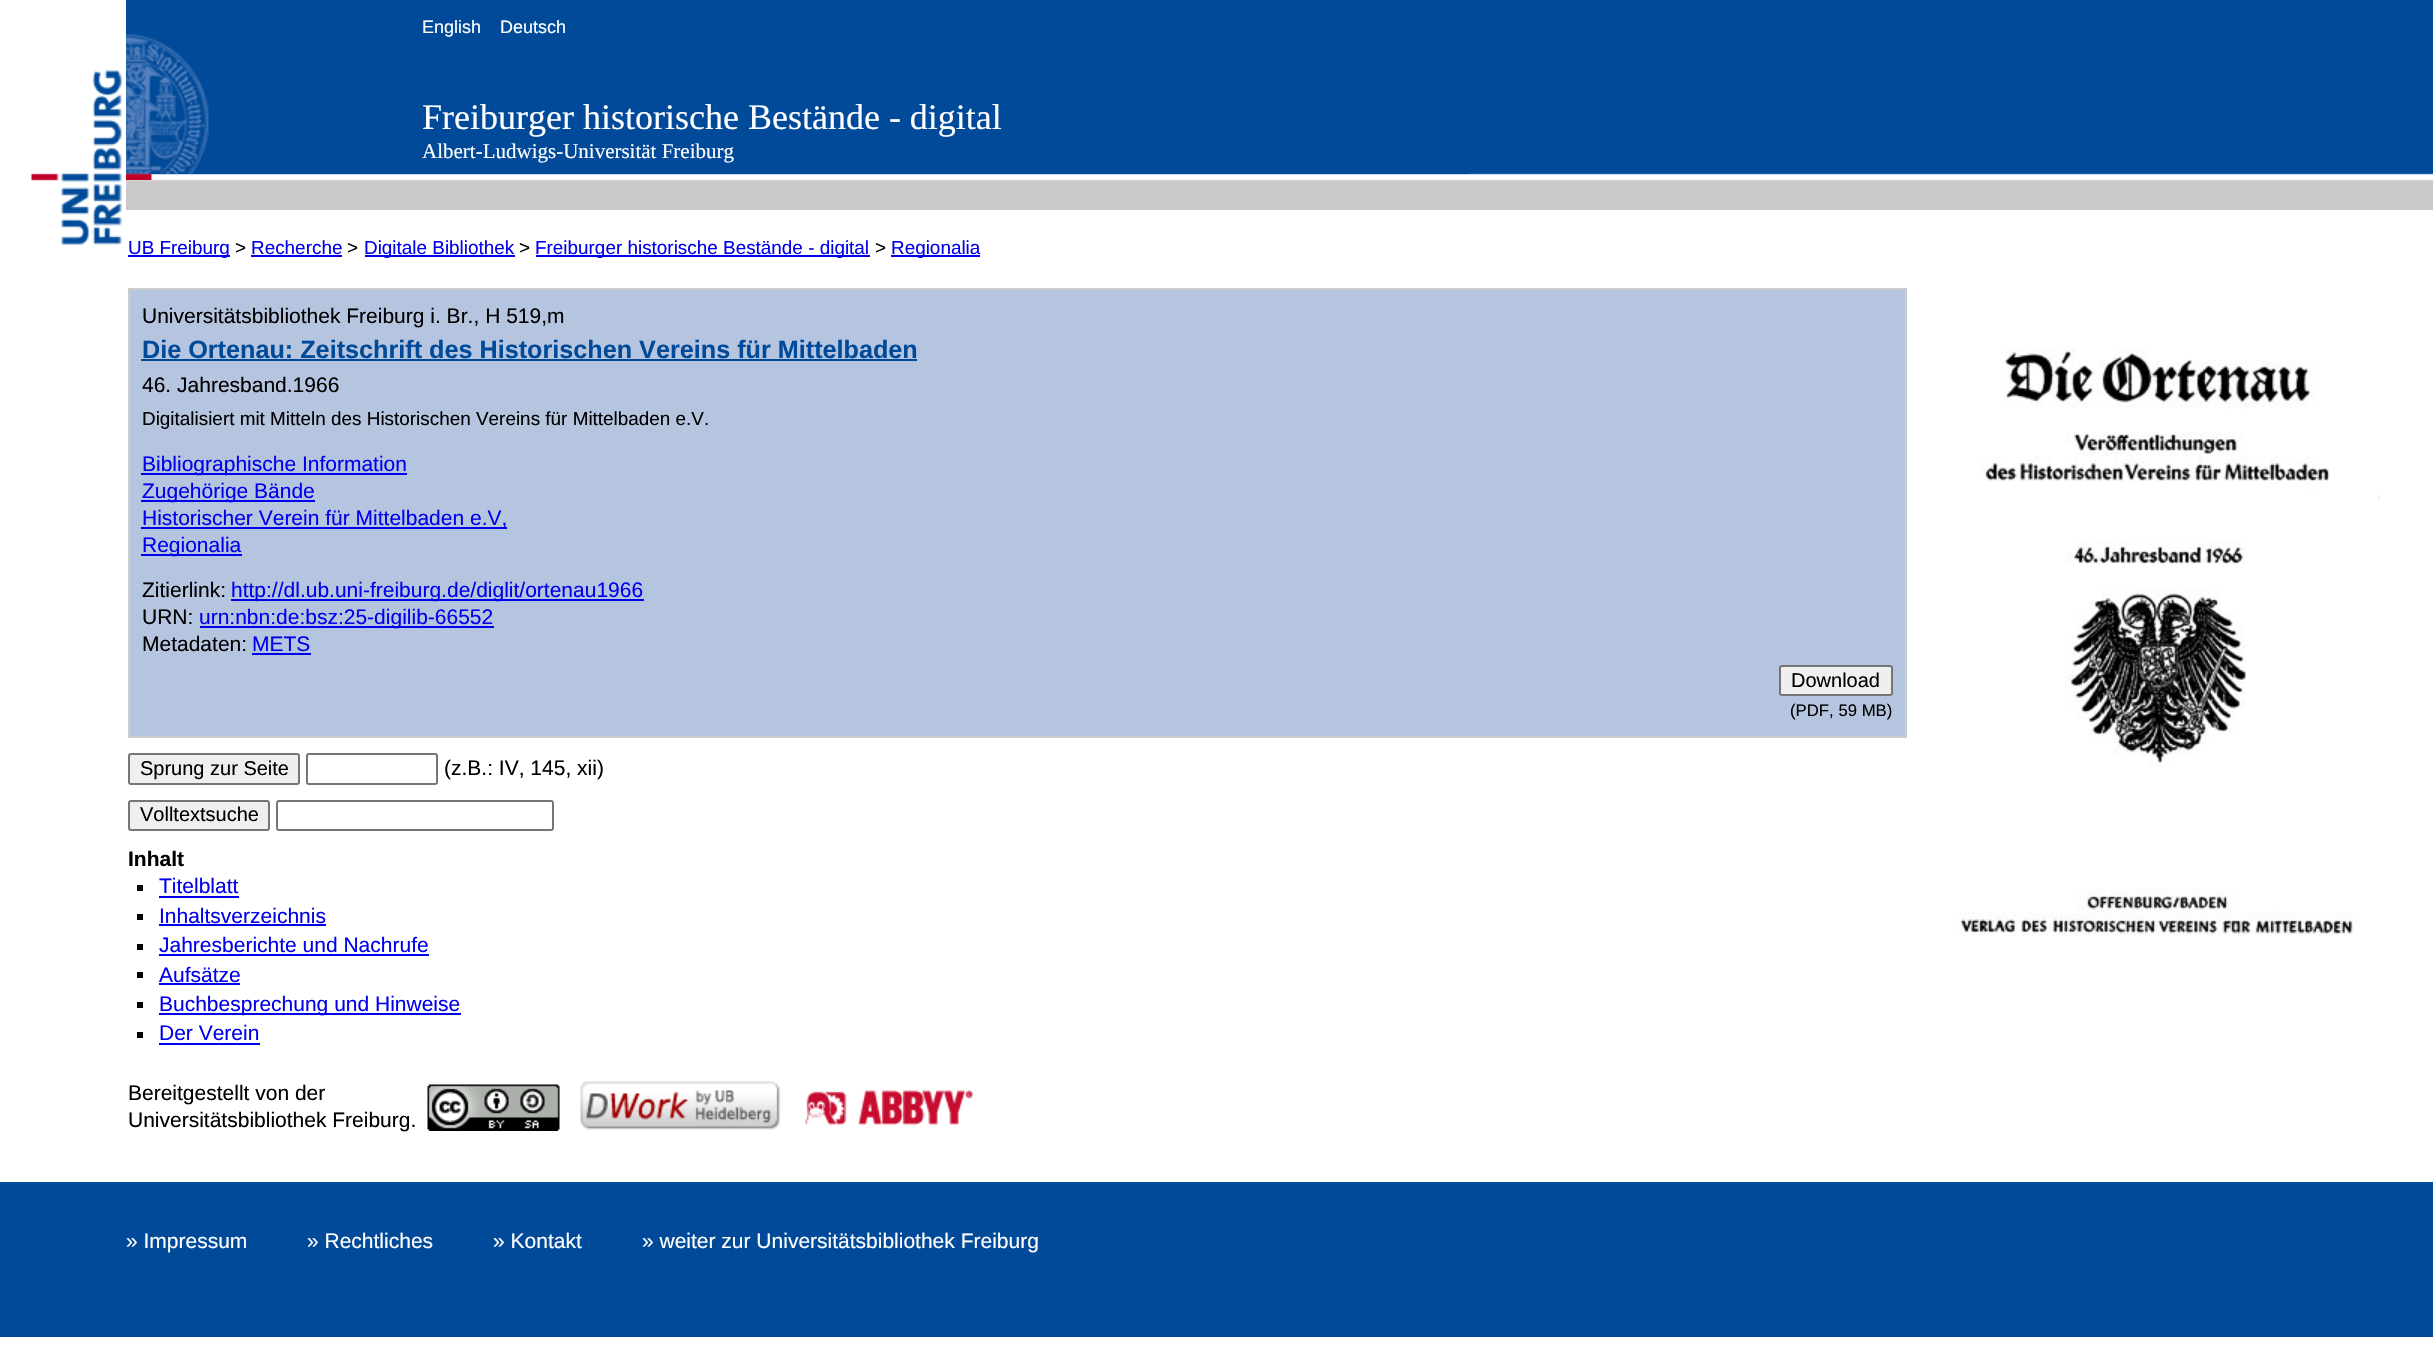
#include "include/core/SkBlurTypes.h"
#include "include/core/SkCanvas.h"
#include "include/core/SkData.h"
#include "include/core/SkFont.h"
#include "include/core/SkFontMgr.h"
#include "include/core/SkImage.h"
#include "include/core/SkMaskFilter.h"
#include "include/core/SkPaint.h"
#include "include/core/SkPathBuilder.h"
#include "include/core/SkTextBlob.h"
#include "include/effects/SkDashPathEffect.h"
#include "include/effects/SkGradientShader.h"
#include "include/utils/SkParsePath.h"

extern sk_sp<SkFontMgr> fontMgr;

static SkFont font(const char* family, int weight, float size, bool italic = false) {
    SkFontStyle style(weight, SkFontStyle::kNormal_Width,
        italic ? SkFontStyle::kItalic_Slant : SkFontStyle::kUpright_Slant);
    SkFont result(fontMgr->matchFamilyStyle(family, style), size);
    result.setSubpixel(true);
    return result;
}

static void drawLabel(SkCanvas* canvas, const char* s, float x, float y, const SkFont& font, SkColor color) {
    SkPaint ink(SkColor4f::FromColor(color));
    ink.setAntiAlias(true);
    canvas->drawString(s, x, y, font, ink);
}

static void fillRect(SkCanvas* canvas, float x, float y, float w, float h, SkColor color) {
    SkPaint ink(SkColor4f::FromColor(color));
    ink.setAntiAlias(true);
    canvas->drawRect(SkRect::MakeXYWH(x, y, w, h), ink);
}

static void drawPhoto(SkCanvas* canvas, const char* path, float x, float y, float w, float h) {
    auto image = SkImages::DeferredFromEncodedData(SkData::MakeFromFileName(path));
    canvas->drawImageRect(image, SkRect::MakeXYWH(x, y, w, h), SkSamplingOptions());
}

void draw(SkCanvas* canvas) {
    SkPaint paint;
    paint.setAntiAlias(true);
    canvas->clear(0xFFFFFFFF);
    drawPhoto(canvas, "assets/img1.png", 126, 0, 2307, 210);
    fillRect(canvas, 126, 173, 1344, 1, 0xFF004A99);
    drawPhoto(canvas, "assets/img2.png", 31, 70, 91, 175);
    drawPhoto(canvas, "assets/img3.png", 126, 34, 83, 146);
    SkFont font1 = font("Liberation Sans", 400, 18);
    drawLabel(canvas, "English", 422, 33, font1, 0xFFFFFFFF);
    drawLabel(canvas, "Deutsch", 500, 33, font1, 0xFFFFFFFF);
    SkFont font2 = font("Liberation Serif", 400, 36);
    drawLabel(canvas, "Freiburger historische Bestände - digital", 422, 129, font2, 0xFFFFFFFF);
    SkFont font3 = font("Liberation Serif", 400, 21);
    drawLabel(canvas, "Albert-Ludwigs-Universität Freiburg", 422, 158, font3, 0xFFFFFFFF);
    fillRect(canvas, 128, 255, 102, 2, 0xFF0000EE);
    SkFont font4 = font("Liberation Sans", 400, 18.9f);
    drawLabel(canvas, "UB Freiburg", 128, 254, font4, 0xFF0000EE);
    drawLabel(canvas, ">", 235, 254, font4, 0xFF000000);
    drawLabel(canvas, "Recherche", 251, 254, font4, 0xFF0000EE);
    fillRect(canvas, 251, 255, 91, 2, 0xFF0000EE);
    drawLabel(canvas, ">", 347, 254, font4, 0xFF000000);
    fillRect(canvas, 365, 255, 150, 2, 0xFF0000EE);
    drawLabel(canvas, "Digitale Bibliothek", 364, 254, font4, 0xFF0000EE);
    drawLabel(canvas, ">", 519, 254, font4, 0xFF000000);
    fillRect(canvas, 536, 255, 334, 2, 0xFF0000EE);
    drawLabel(canvas, "Freiburger historische Bestände - digital", 535, 254, font4, 0xFF0000EE);
    drawLabel(canvas, ">", 875, 254, font4, 0xFF000000);
    fillRect(canvas, 891, 255, 89, 2, 0xFF0000EE);
    drawLabel(canvas, "Regionalia", 891, 254, font4, 0xFF0000EE);
    paint.setColor(0xFFB6C5DF);
    canvas->drawRect(SkRect::MakeXYWH(129, 289, 1777, 448), paint);
    paint.setStroke(true);
    paint.setStrokeWidth(2);
    paint.setColor(0xFFCCCCCC);
    canvas->drawRect(SkRect::MakeXYWH(129, 289, 1777, 448), paint);
    SkFont font5 = font("Liberation Sans", 400, 21);
    drawLabel(canvas, "Universitätsbibliothek Freiburg i. Br., H 519,m", 142, 323, font5, 0xFF000000);
    SkFont font6 = font("Liberation Sans", 700, 25.2f);
    drawLabel(canvas, "Die Ortenau: Zeitschrift des Historischen Vereins für Mittelbaden", 142, 358, font6, 0xFF004A99);
    fillRect(canvas, 141, 359, 776, 2, 0xFF004A99);
    drawLabel(canvas, "46. Jahresband.1966", 142, 392, font5, 0xFF000000);
    drawLabel(canvas, "Digitalisiert mit Mitteln des Historischen Vereins für Mittelbaden e.V.", 142, 425, font4, 0xFF000000);
    fillRect(canvas, 141, 473, 266, 2, 0xFF0000EE);
    drawLabel(canvas, "Bibliographische Information", 142, 471, font5, 0xFF0000EE);
    fillRect(canvas, 141, 500, 174, 2, 0xFF0000EE);
    drawLabel(canvas, "Zugehörige Bände", 142, 498, font5, 0xFF0000EE);
    fillRect(canvas, 141, 527, 366, 2, 0xFF0000EE);
    drawLabel(canvas, "Historischer Verein für Mittelbaden e.V,", 142, 525, font5, 0xFF0000EE);
    fillRect(canvas, 141, 554, 101, 2, 0xFF0000EE);
    drawLabel(canvas, "Regionalia", 142, 552, font5, 0xFF0000EE);
    drawLabel(canvas, "Zitierlink:", 142, 597, font5, 0xFF000000);
    fillRect(canvas, 231, 599, 413, 2, 0xFF0000EE);
    drawLabel(canvas, "http://dl.ub.uni-freiburg.de/diglit/ortenau1966", 231, 597, font5, 0xFF0000EE);
    drawLabel(canvas, "URN:", 142, 624, font5, 0xFF000000);
    fillRect(canvas, 200, 626, 294, 2, 0xFF0000EE);
    drawLabel(canvas, "urn:nbn:de:bsz:25-digilib-66552", 199, 624, font5, 0xFF0000EE);
    drawLabel(canvas, "Metadaten:", 142, 651, font5, 0xFF000000);
    drawLabel(canvas, "METS", 252, 651, font5, 0xFF0000EE);
    fillRect(canvas, 252, 653, 59, 2, 0xFF0000EE);
    paint.setStroke(false);
    paint.setColor(0xFFEFEFEF);
    canvas->drawRoundRect(SkRect::MakeXYWH(1780, 666, 112, 29), 2, 2, paint);
    paint.setStroke(true);
    paint.setColor(0xFF767676);
    canvas->drawRoundRect(SkRect::MakeXYWH(1780, 666, 112, 29), 2, 2, paint);
    SkFont font7 = font("Liberation Sans", 400, 20);
    drawLabel(canvas, "Download", 1791, 687, font7, 0xFF000000);
    SkFont font8 = font("Liberation Sans", 400, 16.75f);
    drawLabel(canvas, "(PDF, 59 MB)", 1790, 716, font8, 0xFF000000);
    drawPhoto(canvas, "assets/img4.png", 1959, 348, 422, 588);
    paint.setStroke(false);
    paint.setColor(0xFFEFEFEF);
    canvas->drawRoundRect(SkRect::MakeXYWH(129, 754, 170, 30), 2, 2, paint);
    paint.setStroke(true);
    paint.setColor(0xFF767676);
    canvas->drawRoundRect(SkRect::MakeXYWH(129, 754, 170, 30), 2, 2, paint);
    drawLabel(canvas, "Sprung zur Seite", 140, 775, font7, 0xFF000000);
    canvas->drawRoundRect(SkRect::MakeXYWH(307, 754, 130, 30), 2, 2, paint);
    drawLabel(canvas, "(z.B.: IV, 145, xii)", 444, 775, font5, 0xFF000000);
    paint.setStroke(false);
    paint.setColor(0xFFEFEFEF);
    canvas->drawRoundRect(SkRect::MakeXYWH(129, 801, 140, 29), 2, 2, paint);
    paint.setStroke(true);
    paint.setColor(0xFF767676);
    canvas->drawRoundRect(SkRect::MakeXYWH(129, 801, 140, 29), 2, 2, paint);
    drawLabel(canvas, "Volltextsuche", 140, 821, font7, 0xFF000000);
    canvas->drawRoundRect(SkRect::MakeXYWH(277, 801, 276, 29), 2, 2, paint);
    SkFont font9 = font("Liberation Sans", 700, 21);
    drawLabel(canvas, "Inhalt", 128, 866, font9, 0xFF000000);
    fillRect(canvas, 137, 885, 6, 6, 0xFF000000);
    drawLabel(canvas, "Titelblatt", 159, 893, font5, 0xFF0000EE);
    fillRect(canvas, 159, 896, 80, 2, 0xFF0000EE);
    fillRect(canvas, 137, 914, 6, 6, 0xFF000000);
    drawLabel(canvas, "Inhaltsverzeichnis", 159, 923, font5, 0xFF0000EE);
    fillRect(canvas, 159, 924, 167, 2, 0xFF0000EE);
    fillRect(canvas, 137, 944, 6, 6, 0xFF000000);
    drawLabel(canvas, "Jahresberichte und Nachrufe", 159, 952, font5, 0xFF0000EE);
    fillRect(canvas, 159, 954, 270, 2, 0xFF0000EE);
    fillRect(canvas, 137, 972, 6, 6, 0xFF000000);
    drawLabel(canvas, "Aufsätze", 159, 982, font5, 0xFF0000EE);
    fillRect(canvas, 159, 983, 81, 2, 0xFF0000EE);
    fillRect(canvas, 137, 1002, 6, 6, 0xFF000000);
    fillRect(canvas, 159, 1013, 302, 2, 0xFF0000EE);
    drawLabel(canvas, "Buchbesprechung und Hinweise", 159, 1011, font5, 0xFF0000EE);
    fillRect(canvas, 137, 1032, 6, 6, 0xFF000000);
    drawLabel(canvas, "Der Verein", 159, 1040, font5, 0xFF0000EE);
    fillRect(canvas, 159, 1043, 101, 2, 0xFF0000EE);
    drawLabel(canvas, "Bereitgestellt von der", 128, 1100, font5, 0xFF000000);
    drawLabel(canvas, "Universitätsbibliothek Freiburg.", 128, 1127, font5, 0xFF000000);
    drawPhoto(canvas, "assets/img5.png", 427, 1084, 133, 47);
    drawPhoto(canvas, "assets/img6.png", 580, 1081, 201, 49);
    drawPhoto(canvas, "assets/img7.png", 805, 1090, 169, 36);
    fillRect(canvas, 0, 1182, 2433, 155, 0xFF004A99);
    drawLabel(canvas, "» Impressum", 126, 1248, font5, 0xFFFFFFFF);
    drawLabel(canvas, "» Rechtliches", 307, 1248, font5, 0xFFFFFFFF);
    drawLabel(canvas, "» Kontakt", 493, 1248, font5, 0xFFFFFFFF);
    drawLabel(canvas, "» weiter zur Universitätsbibliothek Freiburg", 642, 1248, font5, 0xFFFFFFFF);
}
